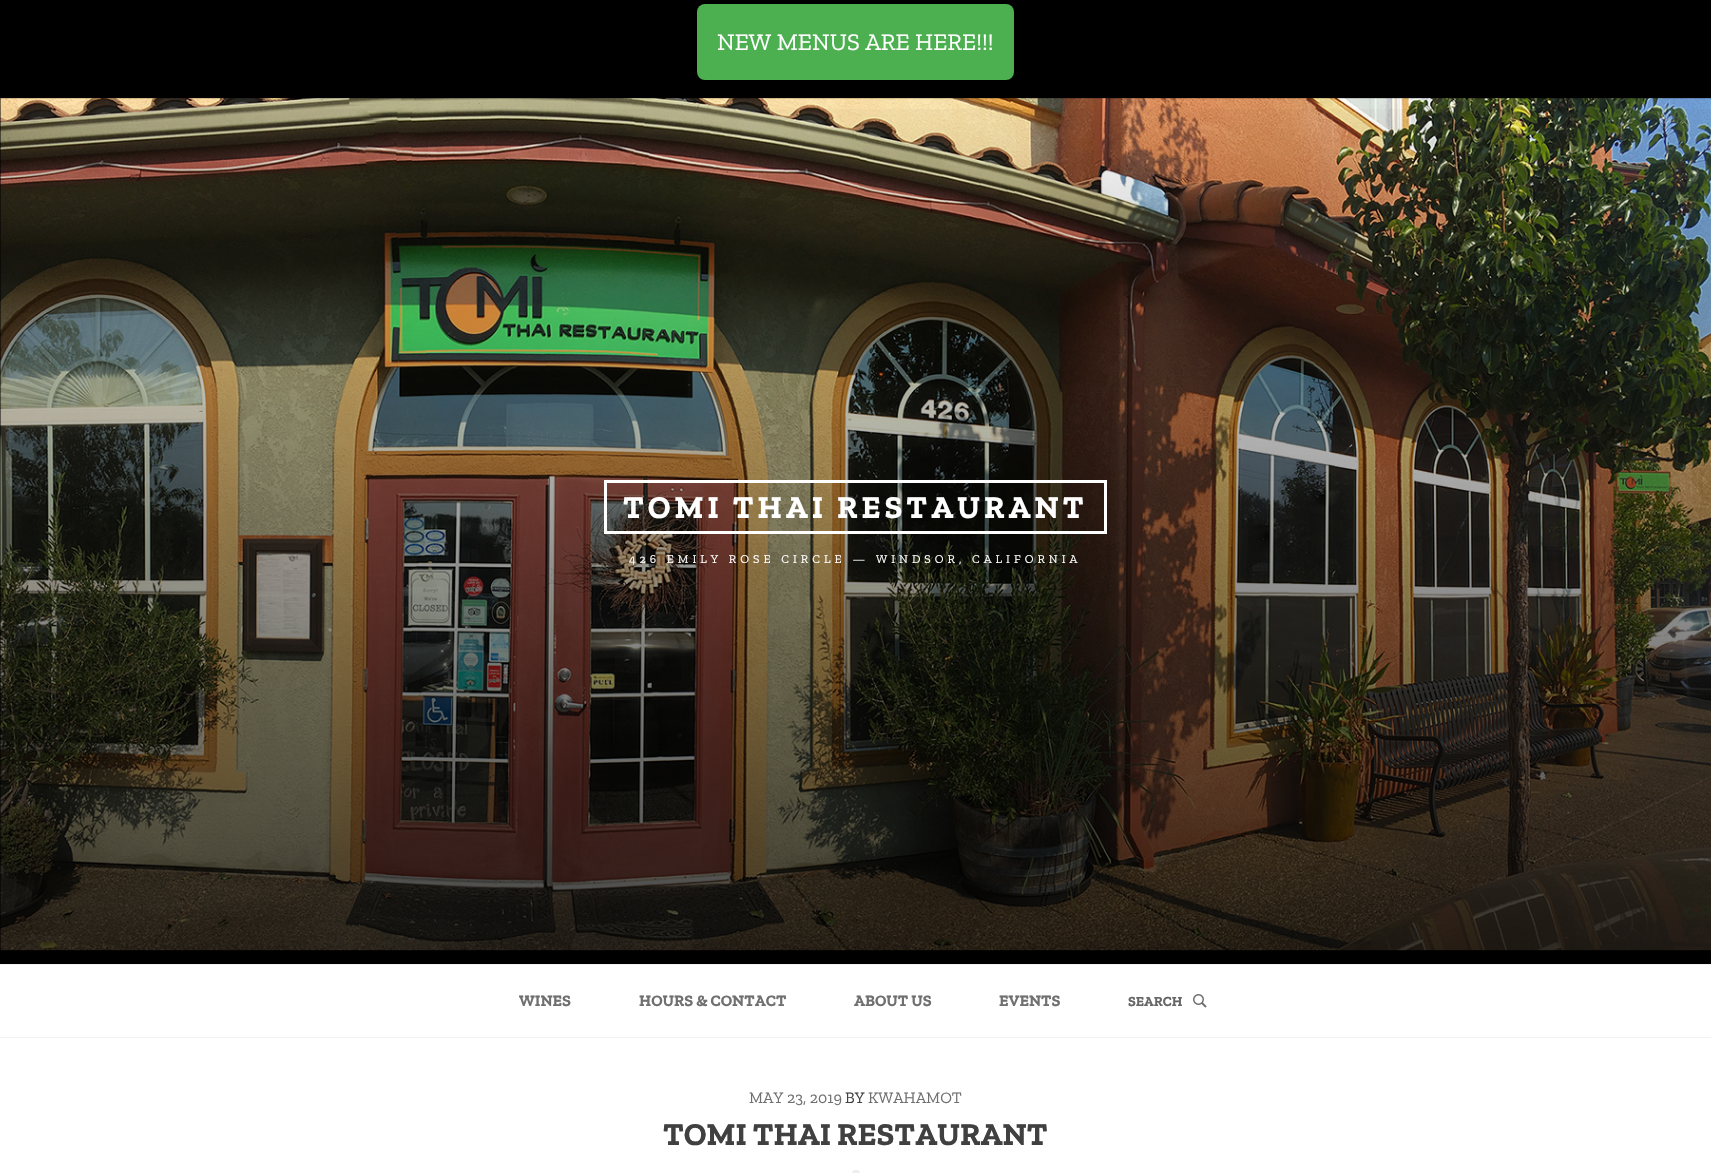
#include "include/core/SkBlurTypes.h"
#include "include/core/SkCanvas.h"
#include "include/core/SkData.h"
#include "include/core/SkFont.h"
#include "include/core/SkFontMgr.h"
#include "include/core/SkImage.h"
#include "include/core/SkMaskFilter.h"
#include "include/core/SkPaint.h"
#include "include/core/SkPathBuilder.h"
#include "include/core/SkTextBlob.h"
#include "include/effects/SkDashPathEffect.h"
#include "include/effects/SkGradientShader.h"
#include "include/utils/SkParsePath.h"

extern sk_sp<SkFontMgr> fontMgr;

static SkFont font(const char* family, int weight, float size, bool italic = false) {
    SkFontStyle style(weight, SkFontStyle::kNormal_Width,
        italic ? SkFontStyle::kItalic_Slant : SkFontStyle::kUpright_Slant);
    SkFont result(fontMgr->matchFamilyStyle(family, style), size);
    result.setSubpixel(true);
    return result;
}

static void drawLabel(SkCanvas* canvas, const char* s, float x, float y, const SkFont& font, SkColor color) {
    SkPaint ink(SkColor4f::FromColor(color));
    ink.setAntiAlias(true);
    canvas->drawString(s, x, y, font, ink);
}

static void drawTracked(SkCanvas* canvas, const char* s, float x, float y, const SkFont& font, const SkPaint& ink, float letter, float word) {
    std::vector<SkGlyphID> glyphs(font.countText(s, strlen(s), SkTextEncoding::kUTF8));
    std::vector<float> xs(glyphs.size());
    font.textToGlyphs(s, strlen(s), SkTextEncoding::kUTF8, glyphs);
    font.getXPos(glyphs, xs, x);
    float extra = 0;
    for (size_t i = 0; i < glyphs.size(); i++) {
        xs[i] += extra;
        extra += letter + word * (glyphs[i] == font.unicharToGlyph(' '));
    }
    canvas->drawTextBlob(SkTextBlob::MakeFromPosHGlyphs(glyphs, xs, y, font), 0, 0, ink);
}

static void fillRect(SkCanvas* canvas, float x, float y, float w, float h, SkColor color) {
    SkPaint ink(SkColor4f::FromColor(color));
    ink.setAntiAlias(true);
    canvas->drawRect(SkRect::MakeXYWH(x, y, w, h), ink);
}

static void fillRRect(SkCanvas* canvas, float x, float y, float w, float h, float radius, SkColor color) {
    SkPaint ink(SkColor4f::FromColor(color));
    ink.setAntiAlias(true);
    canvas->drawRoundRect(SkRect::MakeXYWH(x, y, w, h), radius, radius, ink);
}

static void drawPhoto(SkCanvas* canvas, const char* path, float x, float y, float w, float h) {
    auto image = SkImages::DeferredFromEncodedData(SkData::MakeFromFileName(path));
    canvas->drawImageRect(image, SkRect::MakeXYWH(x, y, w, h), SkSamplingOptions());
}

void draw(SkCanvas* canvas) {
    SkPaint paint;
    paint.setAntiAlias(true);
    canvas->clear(0xFFFFFFFF);
    fillRect(canvas, 0, 0, 1711, 964, 0xFF000000);
    fillRRect(canvas, 697, 4, 317, 76, 8, 0xFF4CAF50);
    SkFont font1 = font("Zilla Slab", 400, 24);
    drawLabel(canvas, "NEW MENUS ARE HERE!!!", 717, 50, font1, 0xFFFFFFFF);
    drawPhoto(canvas, "assets/img1.png", 0, 98, 1711, 853);
    {
        const SkColor colors[] = {0x00000000, 0xBF000000};
        const float stops[] = {0, 1};
        const SkPoint ends[] = {{856, 84}, {856, 964}};
        paint.setShader(SkGradientShader::MakeLinear(ends, colors, stops, 2, SkTileMode::kClamp));
        paint.setAlpha(255);
    }
    canvas->drawRect(SkRect::MakeXYWH(0, 109, 1711, 842), paint);
    paint.setStroke(true);
    paint.setStrokeWidth(3);
    paint.setShader(nullptr);
    paint.setColor(0xFFFFFFFF);
    canvas->drawRect(SkRect::MakeXYWH(605.5f, 481.5f, 500, 51), paint);
    SkFont font2 = font("Zilla Slab", 700, 32);
    paint.setStroke(false);
    drawTracked(canvas, "TOMI THAI RESTAURANT", 623, 518, font2, paint, 4, 0);
    SkFont font3 = font("Zilla Slab", 400, 12);
    drawTracked(canvas, "426 EMILY ROSE CIRCLE — WINDSOR, CALIFORNIA", 629, 563, font3, paint, 4, 0);
    fillRect(canvas, 0, 964, 1711, 1, 0xFFF2F2F2);
    fillRect(canvas, 0, 1037, 1711, 1, 0xFFF2F2F2);
    SkFont font4 = font("Zilla Slab", 700, 16);
    drawLabel(canvas, "WINES", 519, 1006, font4, 0xFF707070);
    drawLabel(canvas, "HOURS & CONTACT", 639, 1006, font4, 0xFF707070);
    drawLabel(canvas, "ABOUT US", 854, 1006, font4, 0xFF707070);
    drawLabel(canvas, "EVENTS", 999, 1006, font4, 0xFF707070);
    SkFont font5 = font("Zilla Slab", 700, 14);
    drawLabel(canvas, "SEARCH", 1128, 1006, font5, 0xFF666666);
    drawPhoto(canvas, "assets/img2.png", 1193, 994, 14, 14);
    SkFont font6 = font("Zilla Slab", 400, 16);
    drawLabel(canvas, "MAY 23, 2019", 749, 1103, font6, 0xFF707070);
    drawLabel(canvas, "BY", 845, 1103, font6, 0xFF404040);
    drawLabel(canvas, "KWAHAMOT", 868, 1103, font6, 0xFF707070);
    drawLabel(canvas, "TOMI THAI RESTAURANT", 663, 1145, font2, 0xFF404040);
    fillRRect(canvas, 852, 1170, 8, 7, 4, 0xFFECEFF1);
}
